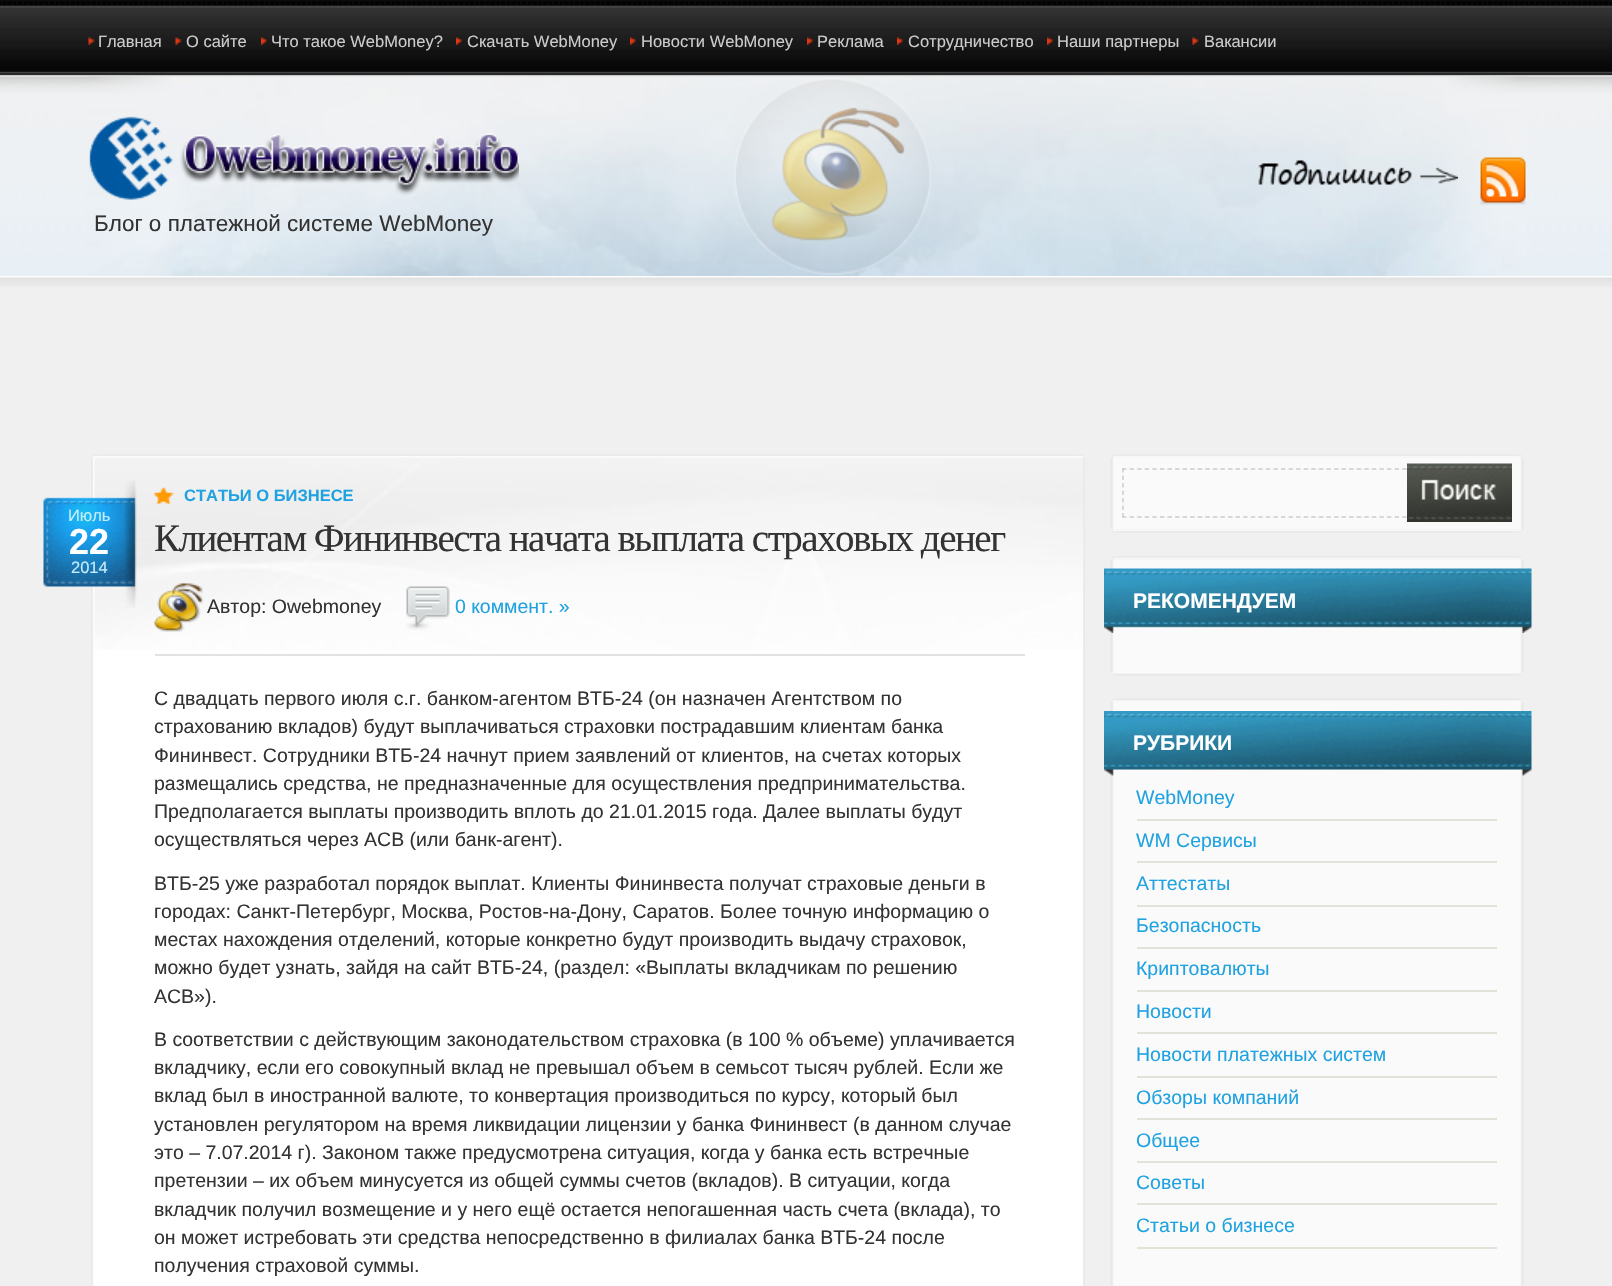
#include "include/core/SkBlurTypes.h"
#include "include/core/SkCanvas.h"
#include "include/core/SkData.h"
#include "include/core/SkFont.h"
#include "include/core/SkFontMgr.h"
#include "include/core/SkImage.h"
#include "include/core/SkMaskFilter.h"
#include "include/core/SkPaint.h"
#include "include/core/SkPathBuilder.h"
#include "include/core/SkTextBlob.h"
#include "include/effects/SkDashPathEffect.h"
#include "include/effects/SkGradientShader.h"
#include "include/utils/SkParsePath.h"

extern sk_sp<SkFontMgr> fontMgr;

static SkFont font(const char* family, int weight, float size, bool italic = false) {
    SkFontStyle style(weight, SkFontStyle::kNormal_Width,
        italic ? SkFontStyle::kItalic_Slant : SkFontStyle::kUpright_Slant);
    SkFont result(fontMgr->matchFamilyStyle(family, style), size);
    result.setSubpixel(true);
    return result;
}

static void drawLabel(SkCanvas* canvas, const char* s, float x, float y, const SkFont& font, SkColor color) {
    SkPaint ink(SkColor4f::FromColor(color));
    ink.setAntiAlias(true);
    canvas->drawString(s, x, y, font, ink);
}

static void drawTracked(SkCanvas* canvas, const char* s, float x, float y, const SkFont& font, const SkPaint& ink, float letter, float word) {
    std::vector<SkGlyphID> glyphs(font.countText(s, strlen(s), SkTextEncoding::kUTF8));
    std::vector<float> xs(glyphs.size());
    font.textToGlyphs(s, strlen(s), SkTextEncoding::kUTF8, glyphs);
    font.getXPos(glyphs, xs, x);
    float extra = 0;
    for (size_t i = 0; i < glyphs.size(); i++) {
        xs[i] += extra;
        extra += letter + word * (glyphs[i] == font.unicharToGlyph(' '));
    }
    canvas->drawTextBlob(SkTextBlob::MakeFromPosHGlyphs(glyphs, xs, y, font), 0, 0, ink);
}

static void fillRect(SkCanvas* canvas, float x, float y, float w, float h, SkColor color) {
    SkPaint ink(SkColor4f::FromColor(color));
    ink.setAntiAlias(true);
    canvas->drawRect(SkRect::MakeXYWH(x, y, w, h), ink);
}

static void drawPhoto(SkCanvas* canvas, const char* path, float x, float y, float w, float h) {
    auto image = SkImages::DeferredFromEncodedData(SkData::MakeFromFileName(path));
    canvas->drawImageRect(image, SkRect::MakeXYWH(x, y, w, h), SkSamplingOptions());
}

static SkPath parsePath(const char* data, bool evenOdd = false) {
    SkPath result = *SkParsePath::FromSVGString(data);
    if (evenOdd) result.setFillType(SkPathFillType::kEvenOdd);
    return result;
}

void draw(SkCanvas* canvas) {
    SkPaint paint;
    paint.setAntiAlias(true);
    canvas->clear(0xFFF0F0F0);
    drawPhoto(canvas, "assets/img1.png", 0, 0, 1612, 287);
    drawPhoto(canvas, "assets/img2.png", 87, 76, 1440, 200);
    drawPhoto(canvas, "assets/img3.png", 88, 37, 7, 8);
    SkFont font1 = font("Liberation Sans", 400, 16.5f);
    drawLabel(canvas, "Главная", 98, 47, font1, 0xFFCCCCCC);
    drawPhoto(canvas, "assets/img3.png", 175, 37, 7, 8);
    drawLabel(canvas, "О сайте", 186, 47, font1, 0xFFCCCCCC);
    drawPhoto(canvas, "assets/img4.png", 261, 37, 6, 8);
    drawLabel(canvas, "Что такое WebMoney?", 271, 47, font1, 0xFFCCCCCC);
    drawPhoto(canvas, "assets/img4.png", 456, 37, 6, 8);
    drawLabel(canvas, "Скачать WebMoney", 467, 47, font1, 0xFFCCCCCC);
    drawPhoto(canvas, "assets/img5.png", 630, 37, 6, 8);
    drawLabel(canvas, "Новости WebMoney", 641, 47, font1, 0xFFCCCCCC);
    drawPhoto(canvas, "assets/img5.png", 807, 37, 6, 8);
    drawLabel(canvas, "Реклама", 817, 47, font1, 0xFFCCCCCC);
    drawPhoto(canvas, "assets/img5.png", 897, 37, 6, 8);
    drawLabel(canvas, "Сотрудничество", 908, 47, font1, 0xFFCCCCCC);
    drawPhoto(canvas, "assets/img4.png", 1047, 37, 6, 8);
    drawLabel(canvas, "Наши партнеры", 1057, 47, font1, 0xFFCCCCCC);
    drawPhoto(canvas, "assets/img6.png", 1192, 37, 7, 8);
    drawLabel(canvas, "Вакансии", 1204, 47, font1, 0xFFCCCCCC);
    drawPhoto(canvas, "assets/img7.png", 1258, 160, 200, 25);
    drawPhoto(canvas, "assets/img8.png", 1480, 157, 46, 48);
    drawPhoto(canvas, "assets/img9.png", 89, 116, 430, 84);
    SkFont font2 = font("Liberation Sans", 400, 22.5f);
    drawLabel(canvas, "Блог о платежной системе WebMoney", 94, 231, font2, 0xFF333333);
    drawPhoto(canvas, "assets/img10.png", 92, 454, 992, 4);
    drawPhoto(canvas, "assets/img11.png", 91, 458, 994, 828);
    drawPhoto(canvas, "assets/img12.png", 94, 458, 989, 192);
    drawPhoto(canvas, "assets/img13.png", 154, 487, 20, 17);
    SkFont font3 = font("Liberation Sans", 700, 16.5f);
    drawLabel(canvas, "СТАТЬИ О БИЗНЕСЕ", 184, 501, font3, 0xFF1FA2E1);
    drawPhoto(canvas, "assets/img14.png", 43, 480, 94, 128);
    drawLabel(canvas, "Июль", 68, 521, font1, 0xFFC5ECFC);
    SkFont font4 = font("Liberation Sans", 700, 36);
    drawLabel(canvas, "22", 69, 554, font4, 0xFFFFFFFF);
    drawLabel(canvas, "2014", 71, 573, font1, 0xFFC5ECFC);
    SkFont font5 = font("Liberation Serif", 400, 39);
    paint.setColor(0xFF333333);
    drawTracked(canvas, "Клиентам Фининвеста начата выплата страховых денег", 154, 551, font5, paint, -1.5f, 0);
    fillRect(canvas, 155, 654, 870, 2, 0xFFE2E2E2);
    drawPhoto(canvas, "assets/img15.png", 154, 583, 49, 49);
    SkFont font6 = font("Liberation Sans", 400, 19.5f);
    drawLabel(canvas, "Автор: Owebmoney", 207, 613, font6, 0xFF333333);
    drawPhoto(canvas, "assets/img16.png", 406, 586, 44, 44);
    drawLabel(canvas, "0 коммент. »", 455, 613, font6, 0xFF1FA2E1);
    drawLabel(canvas, "С двадцать первого июля с.г. банком-агентом ВТБ-24 (он назначен Агентством по", 154, 705, font6, 0xFF333333);
    drawLabel(canvas, "страхованию вкладов) будут выплачиваться страховки пострадавшим клиентам банка", 154, 733, font6, 0xFF333333);
    drawLabel(canvas, "Фининвест. Сотрудники ВТБ-24 начнут прием заявлений от клиентов, на счетах которых", 154, 762, font6, 0xFF333333);
    drawLabel(canvas, "размещались средства, не предназначенные для осуществления предпринимательства.", 154, 790, font6, 0xFF333333);
    drawLabel(canvas, "Предполагается выплаты производить вплоть до 21.01.2015 года. Далее выплаты будут", 154, 818, font6, 0xFF333333);
    drawLabel(canvas, "осуществляться через АСВ (или банк-агент).", 154, 846, font6, 0xFF333333);
    drawLabel(canvas, "ВТБ-25 уже разработал порядок выплат. Клиенты Фининвеста получат страховые деньги в", 154, 890, font6, 0xFF333333);
    drawLabel(canvas, "городах: Санкт-Петербург, Москва, Ростов-на-Дону, Саратов. Более точную информацию о", 154, 918, font6, 0xFF333333);
    drawLabel(canvas, "местах нахождения отделений, которые конкретно будут производить выдачу страховок,", 154, 946, font6, 0xFF333333);
    drawLabel(canvas, "можно будет узнать, зайдя на сайт ВТБ-24, (раздел: «Выплаты вкладчикам по решению", 154, 974, font6, 0xFF333333);
    drawLabel(canvas, "АСВ»).", 154, 1003, font6, 0xFF333333);
    drawLabel(canvas, "В соответствии с действующим законодательством страховка (в 100 % объеме) уплачивается", 154, 1046, font6, 0xFF333333);
    drawLabel(canvas, "вкладчику, если его совокупный вклад не превышал объем в семьсот тысяч рублей. Если же", 154, 1074, font6, 0xFF333333);
    drawLabel(canvas, "вклад был в иностранной валюте, то конвертация производиться по курсу, который был", 154, 1102, font6, 0xFF333333);
    drawLabel(canvas, "установлен регулятором на время ликвидации лицензии у банка Фининвест (в данном случае", 154, 1131, font6, 0xFF333333);
    drawLabel(canvas, "это – 7.07.2014 г). Законом также предусмотрена ситуация, когда у банка есть встречные", 154, 1159, font6, 0xFF333333);
    drawLabel(canvas, "претензии – их объем минусуется из общей суммы счетов (вкладов). В ситуации, когда", 154, 1187, font6, 0xFF333333);
    drawLabel(canvas, "вкладчик получил возмещение и у него ещё остается непогашенная часть счета (вклада), то", 154, 1216, font6, 0xFF333333);
    drawLabel(canvas, "он может истребовать эти средства непосредственно в филиалах банка ВТБ-24 после", 154, 1244, font6, 0xFF333333);
    drawLabel(canvas, "получения страховой суммы.", 154, 1272, font6, 0xFF333333);
    drawPhoto(canvas, "assets/img17.png", 1112, 454, 410, 4);
    drawPhoto(canvas, "assets/img18.png", 1110, 458, 414, 71);
    paint.setStroke(true);
    paint.setStrokeWidth(1.5f);
    paint.setColor(0xFFCDCDCD);
    paint.setPathEffect(SkDashPathEffect::Make({{4.5f, 3.07f}}, 0));
    canvas->drawPath(parsePath("M1122 469H1407"), paint);
    paint.setPathEffect(nullptr);
    paint.setPathEffect(SkDashPathEffect::Make({{4.5f, 3.07f}}, 0));
    canvas->drawPath(parsePath("M1122 517H1407"), paint);
    paint.setPathEffect(nullptr);
    paint.setPathEffect(SkDashPathEffect::Make({{4.5f, 3}}, 0));
    canvas->drawPath(parsePath("M1123 468V517.5"), paint);
    paint.setPathEffect(nullptr);
    drawPhoto(canvas, "assets/img19.png", 1407, 463, 105, 59);
    drawPhoto(canvas, "assets/img20.png", 1112, 529, 410, 4);
    drawPhoto(canvas, "assets/img17.png", 1112, 556, 410, 4);
    drawPhoto(canvas, "assets/img21.png", 1110, 560, 414, 112);
    drawPhoto(canvas, "assets/img22.png", 1104, 568, 428, 65);
    SkFont font7 = font("Liberation Sans", 700, 21);
    drawLabel(canvas, "РЕКОМЕНДУЕМ", 1133, 608, font7, 0xFFFFFFFF);
    drawPhoto(canvas, "assets/img23.png", 1113, 672, 408, 4);
    drawPhoto(canvas, "assets/img24.png", 1113, 698, 408, 4);
    drawPhoto(canvas, "assets/img27.png", 1113, 1285, 407, 1);
    drawPhoto(canvas, "assets/img25.png", 1110, 702, 414, 584);
    drawPhoto(canvas, "assets/img26.png", 1104, 711, 428, 65);
    drawLabel(canvas, "РУБРИКИ", 1133, 750, font7, 0xFFFFFFFF);
    fillRect(canvas, 1137, 819, 360, 2, 0xFFE2E2D8);
    drawLabel(canvas, "WebMoney", 1136, 804, font6, 0xFF1FA2E1);
    fillRect(canvas, 1137, 861, 360, 2, 0xFFE2E2D8);
    drawLabel(canvas, "WM Сервисы", 1136, 847, font6, 0xFF1FA2E1);
    fillRect(canvas, 1137, 905, 360, 2, 0xFFE2E2D8);
    drawLabel(canvas, "Аттестаты", 1136, 890, font6, 0xFF1FA2E1);
    fillRect(canvas, 1137, 947, 360, 2, 0xFFE2E2D8);
    drawLabel(canvas, "Безопасность", 1136, 932, font6, 0xFF1FA2E1);
    fillRect(canvas, 1137, 990, 360, 2, 0xFFE2E2D8);
    drawLabel(canvas, "Криптовалюты", 1136, 975, font6, 0xFF1FA2E1);
    fillRect(canvas, 1137, 1032, 360, 2, 0xFFE2E2D8);
    drawLabel(canvas, "Новости", 1136, 1018, font6, 0xFF1FA2E1);
    fillRect(canvas, 1137, 1076, 360, 2, 0xFFE2E2D8);
    drawLabel(canvas, "Новости платежных систем", 1136, 1061, font6, 0xFF1FA2E1);
    fillRect(canvas, 1137, 1118, 360, 2, 0xFFE2E2D8);
    drawLabel(canvas, "Обзоры компаний", 1136, 1104, font6, 0xFF1FA2E1);
    fillRect(canvas, 1137, 1161, 360, 2, 0xFFE2E2D8);
    drawLabel(canvas, "Общее", 1136, 1147, font6, 0xFF1FA2E1);
    fillRect(canvas, 1137, 1203, 360, 2, 0xFFE2E2D8);
    drawLabel(canvas, "Советы", 1136, 1189, font6, 0xFF1FA2E1);
    fillRect(canvas, 1137, 1247, 360, 2, 0xFFE2E2D8);
    drawLabel(canvas, "Статьи о бизнесе", 1136, 1232, font6, 0xFF1FA2E1);
}
